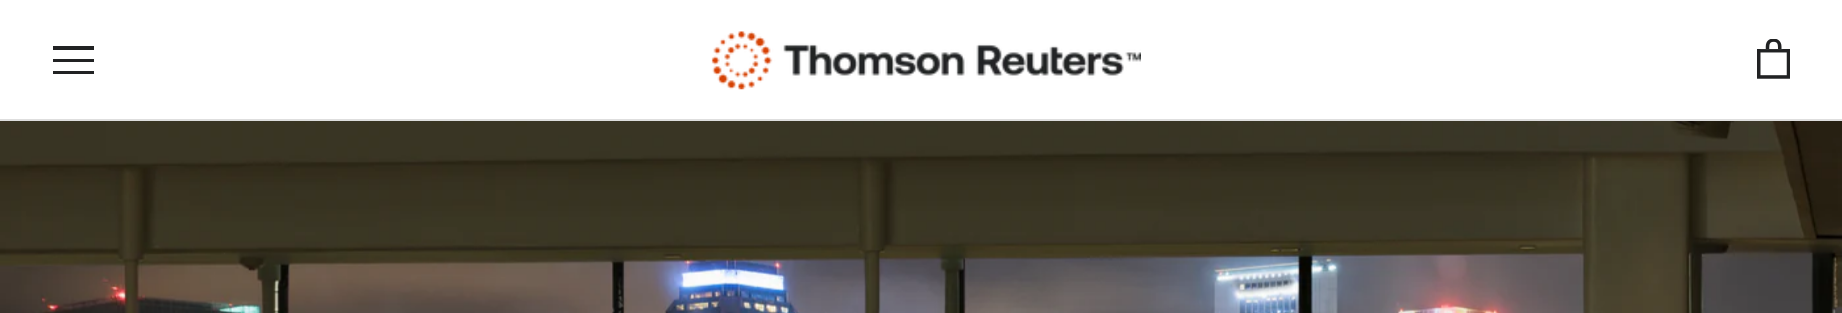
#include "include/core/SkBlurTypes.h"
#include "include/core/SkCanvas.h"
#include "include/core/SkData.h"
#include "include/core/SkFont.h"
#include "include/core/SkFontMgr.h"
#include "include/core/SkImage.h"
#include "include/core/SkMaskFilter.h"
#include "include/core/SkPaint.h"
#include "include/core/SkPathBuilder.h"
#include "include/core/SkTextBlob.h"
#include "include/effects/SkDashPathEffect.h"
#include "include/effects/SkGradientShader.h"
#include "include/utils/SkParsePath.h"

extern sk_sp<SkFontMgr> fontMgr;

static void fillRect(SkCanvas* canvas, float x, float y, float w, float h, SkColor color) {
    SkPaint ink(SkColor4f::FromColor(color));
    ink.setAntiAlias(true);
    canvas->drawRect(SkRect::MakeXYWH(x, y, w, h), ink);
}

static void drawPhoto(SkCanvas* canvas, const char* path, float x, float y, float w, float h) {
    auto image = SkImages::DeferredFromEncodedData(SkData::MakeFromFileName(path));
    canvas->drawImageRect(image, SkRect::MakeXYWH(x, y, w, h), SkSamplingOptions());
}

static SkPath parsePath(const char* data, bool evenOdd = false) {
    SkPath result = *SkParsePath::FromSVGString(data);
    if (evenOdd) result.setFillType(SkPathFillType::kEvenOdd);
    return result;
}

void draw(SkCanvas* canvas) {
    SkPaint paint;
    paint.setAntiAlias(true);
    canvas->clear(0xFFFFFFFF);
    fillRect(canvas, 0, 119, 1842, 2, 0xFFDEDEDE);
    canvas->save();
    canvas->clipRect(SkRect::MakeXYWH(53, 46, 42, 29));
    paint.setColor(0xFF212223);
    canvas->drawPath(parsePath("M52 74V71H94V74ZM52 59H94V62H52ZM52 46H94V50H52Z"), paint);
    canvas->restore();
    drawPhoto(canvas, "assets/img1.png", 711, 31, 430, 59);
    drawPhoto(canvas, "assets/img2.png", 1757, 39, 33, 40);
    drawPhoto(canvas, "assets/img3.png", 0, 121, 1842, 192);
}
